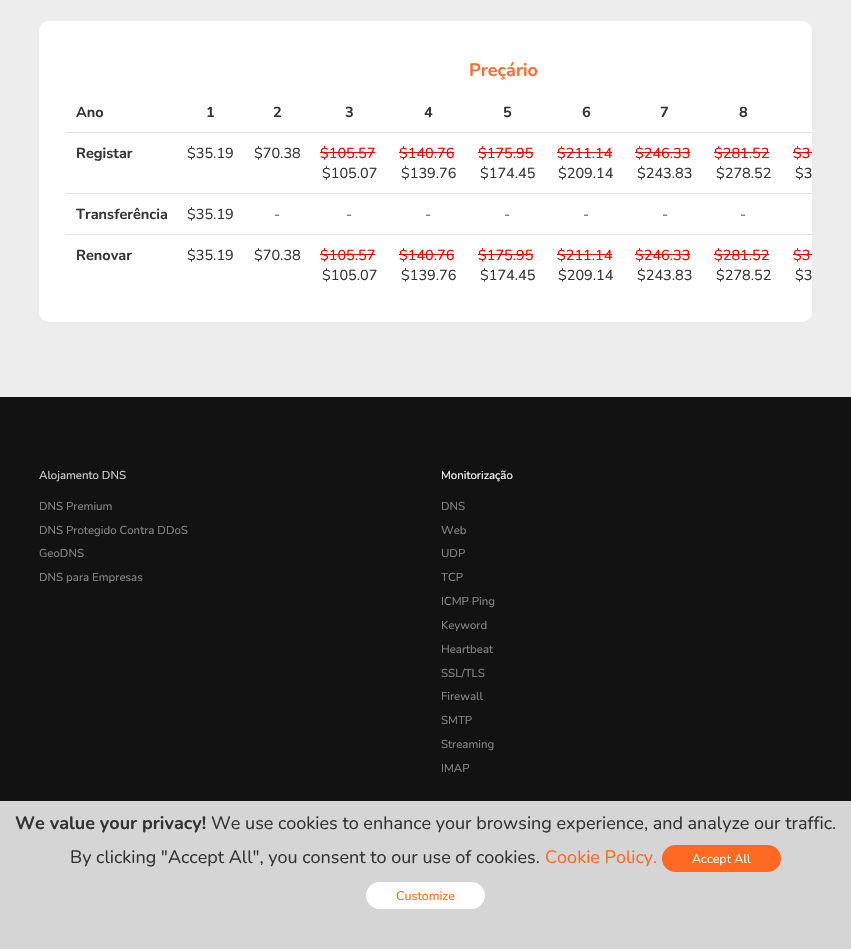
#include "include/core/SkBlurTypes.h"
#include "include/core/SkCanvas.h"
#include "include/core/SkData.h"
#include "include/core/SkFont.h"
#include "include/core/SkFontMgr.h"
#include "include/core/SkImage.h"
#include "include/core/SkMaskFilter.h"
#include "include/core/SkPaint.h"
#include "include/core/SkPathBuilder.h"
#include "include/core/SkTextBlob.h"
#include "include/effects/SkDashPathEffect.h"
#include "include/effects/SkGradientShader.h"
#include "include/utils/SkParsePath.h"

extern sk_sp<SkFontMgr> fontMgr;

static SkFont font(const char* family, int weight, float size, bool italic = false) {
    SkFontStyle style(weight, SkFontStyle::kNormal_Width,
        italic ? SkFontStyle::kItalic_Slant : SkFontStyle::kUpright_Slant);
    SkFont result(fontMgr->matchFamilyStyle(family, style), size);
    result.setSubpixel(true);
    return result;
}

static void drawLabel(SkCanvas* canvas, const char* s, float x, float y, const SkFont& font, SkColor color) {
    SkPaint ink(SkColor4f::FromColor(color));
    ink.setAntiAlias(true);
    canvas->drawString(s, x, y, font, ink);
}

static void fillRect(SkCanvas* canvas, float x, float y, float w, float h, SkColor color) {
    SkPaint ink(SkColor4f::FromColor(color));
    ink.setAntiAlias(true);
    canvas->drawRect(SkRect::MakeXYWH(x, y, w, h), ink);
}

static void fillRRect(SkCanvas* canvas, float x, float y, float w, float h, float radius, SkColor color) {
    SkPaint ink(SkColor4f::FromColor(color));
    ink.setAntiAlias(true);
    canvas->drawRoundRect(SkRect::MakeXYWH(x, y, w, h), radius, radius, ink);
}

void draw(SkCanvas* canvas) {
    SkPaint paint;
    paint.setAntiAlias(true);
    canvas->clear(0xFFEDEDED);
    fillRRect(canvas, 39, 21, 773, 301, 10, 0xFFFFFFFF);
    SkFont font1 = font("Nunito", 700, 18);
    drawLabel(canvas, "Preçário", 469, 76, font1, 0xFFFF6E2C);
    fillRect(canvas, 66, 132, 746, 1, 0xFFE5E5E5);
    SkFont font2 = font("Nunito", 700, 14.5f);
    drawLabel(canvas, "Ano", 76, 117, font2, 0xFF333333);
    drawLabel(canvas, "1", 206, 117, font2, 0xFF333333);
    drawLabel(canvas, "2", 273, 117, font2, 0xFF333333);
    drawLabel(canvas, "3", 345, 117, font2, 0xFF333333);
    drawLabel(canvas, "4", 424, 117, font2, 0xFF333333);
    drawLabel(canvas, "5", 503, 117, font2, 0xFF333333);
    drawLabel(canvas, "6", 582, 117, font2, 0xFF333333);
    drawLabel(canvas, "7", 660, 117, font2, 0xFF333333);
    drawLabel(canvas, "8", 739, 117, font2, 0xFF333333);
    fillRect(canvas, 66, 193, 746, 1, 0xFFE5E5E5);
    drawLabel(canvas, "Registar", 76, 158, font2, 0xFF333333);
    SkFont font3 = font("Nunito", 400, 14.5f);
    drawLabel(canvas, "$35.19", 187, 158, font3, 0xFF333333);
    drawLabel(canvas, "$70.38", 254, 158, font3, 0xFF333333);
    drawLabel(canvas, "$105.57", 320, 158, font3, 0xFFF10000);
    fillRect(canvas, 320, 152, 55, 1, 0xFFF10000);
    drawLabel(canvas, "$105.07", 322, 178, font3, 0xFF333333);
    drawLabel(canvas, "$140.76", 399, 158, font3, 0xFFF10000);
    fillRect(canvas, 399, 152, 55, 1, 0xFFF10000);
    drawLabel(canvas, "$139.76", 401, 178, font3, 0xFF333333);
    drawLabel(canvas, "$175.95", 478, 158, font3, 0xFFF10000);
    fillRect(canvas, 478, 152, 55, 1, 0xFFF10000);
    drawLabel(canvas, "$174.45", 480, 178, font3, 0xFF333333);
    drawLabel(canvas, "$211.14", 557, 158, font3, 0xFFF10000);
    fillRect(canvas, 557, 152, 55, 1, 0xFFF10000);
    drawLabel(canvas, "$209.14", 558, 178, font3, 0xFF333333);
    drawLabel(canvas, "$246.33", 635, 158, font3, 0xFFF10000);
    fillRect(canvas, 635, 152, 55, 1, 0xFFF10000);
    drawLabel(canvas, "$243.83", 637, 178, font3, 0xFF333333);
    drawLabel(canvas, "$281.52", 714, 158, font3, 0xFFF10000);
    fillRect(canvas, 714, 152, 55, 1, 0xFFF10000);
    drawLabel(canvas, "$278.52", 716, 178, font3, 0xFF333333);
    drawLabel(canvas, "$3", 793, 158, font3, 0xFFF10000);
    fillRect(canvas, 793, 152, 19, 1, 0xFFF10000);
    drawLabel(canvas, "$3", 795, 178, font3, 0xFF333333);
    fillRect(canvas, 66, 234, 746, 1, 0xFFE5E5E5);
    drawLabel(canvas, "Transferência", 76, 219, font2, 0xFF333333);
    drawLabel(canvas, "$35.19", 187, 219, font3, 0xFF333333);
    drawLabel(canvas, "-", 274, 219, font3, 0xFF333333);
    drawLabel(canvas, "-", 346, 219, font3, 0xFF333333);
    drawLabel(canvas, "-", 425, 219, font3, 0xFF333333);
    drawLabel(canvas, "-", 504, 219, font3, 0xFF333333);
    drawLabel(canvas, "-", 583, 219, font3, 0xFF333333);
    drawLabel(canvas, "-", 662, 219, font3, 0xFF333333);
    drawLabel(canvas, "-", 740, 219, font3, 0xFF333333);
    drawLabel(canvas, "Renovar", 76, 260, font2, 0xFF333333);
    drawLabel(canvas, "$35.19", 187, 260, font3, 0xFF333333);
    drawLabel(canvas, "$70.38", 254, 260, font3, 0xFF333333);
    drawLabel(canvas, "$105.57", 320, 260, font3, 0xFFF10000);
    fillRect(canvas, 320, 254, 55, 1, 0xFFF10000);
    drawLabel(canvas, "$105.07", 322, 280, font3, 0xFF333333);
    drawLabel(canvas, "$140.76", 399, 260, font3, 0xFFF10000);
    fillRect(canvas, 399, 254, 55, 1, 0xFFF10000);
    drawLabel(canvas, "$139.76", 401, 280, font3, 0xFF333333);
    drawLabel(canvas, "$175.95", 478, 260, font3, 0xFFF10000);
    fillRect(canvas, 478, 254, 55, 1, 0xFFF10000);
    drawLabel(canvas, "$174.45", 480, 280, font3, 0xFF333333);
    drawLabel(canvas, "$211.14", 557, 260, font3, 0xFFF10000);
    fillRect(canvas, 557, 254, 55, 1, 0xFFF10000);
    drawLabel(canvas, "$209.14", 558, 280, font3, 0xFF333333);
    drawLabel(canvas, "$246.33", 635, 260, font3, 0xFFF10000);
    fillRect(canvas, 635, 254, 55, 1, 0xFFF10000);
    drawLabel(canvas, "$243.83", 637, 280, font3, 0xFF333333);
    drawLabel(canvas, "$281.52", 714, 260, font3, 0xFFF10000);
    fillRect(canvas, 714, 254, 55, 1, 0xFFF10000);
    drawLabel(canvas, "$278.52", 716, 280, font3, 0xFF333333);
    drawLabel(canvas, "$3", 793, 260, font3, 0xFFF10000);
    fillRect(canvas, 793, 254, 19, 1, 0xFFF10000);
    drawLabel(canvas, "$3", 795, 280, font3, 0xFF333333);
    fillRect(canvas, 0, 397, 851, 404, 0xFF121212);
    SkFont font4 = font("Nunito", 400, 11.5f);
    drawLabel(canvas, "Alojamento DNS", 39, 479, font4, 0xFFD7D7D7);
    drawLabel(canvas, "DNS Premium", 39, 510, font4, 0xFF898989);
    drawLabel(canvas, "DNS Protegido Contra DDoS", 39, 534, font4, 0xFF898989);
    drawLabel(canvas, "GeoDNS", 39, 557, font4, 0xFF898989);
    drawLabel(canvas, "DNS para Empresas", 39, 581, font4, 0xFF898989);
    drawLabel(canvas, "Monitorização", 441, 479, font4, 0xFFFFFFFF);
    drawLabel(canvas, "DNS", 441, 510, font4, 0xFF898989);
    drawLabel(canvas, "Web", 441, 534, font4, 0xFF898989);
    drawLabel(canvas, "UDP", 441, 557, font4, 0xFF898989);
    drawLabel(canvas, "TCP", 441, 581, font4, 0xFF898989);
    drawLabel(canvas, "ICMP Ping", 441, 605, font4, 0xFF898989);
    drawLabel(canvas, "Keyword", 441, 629, font4, 0xFF898989);
    drawLabel(canvas, "Heartbeat", 441, 653, font4, 0xFF898989);
    drawLabel(canvas, "SSL/TLS", 441, 677, font4, 0xFF898989);
    drawLabel(canvas, "Firewall", 441, 700, font4, 0xFF898989);
    drawLabel(canvas, "SMTP", 441, 724, font4, 0xFF898989);
    drawLabel(canvas, "Streaming", 441, 748, font4, 0xFF898989);
    drawLabel(canvas, "IMAP", 441, 772, font4, 0xFF898989);
    fillRect(canvas, 0, 801, 851, 148, 0xFFD5D5D5);
    drawLabel(canvas, "We value your privacy!", 15, 829, font1, 0xFF333333);
    SkFont font5 = font("Nunito", 400, 18);
    drawLabel(canvas, "We use cookies to enhance your browsing experience, and analyze our traffic.", 211, 829, font5, 0xFF333333);
    drawLabel(canvas, "By clicking \"Accept All\", you consent to our use of cookies.", 70, 863, font5, 0xFF333333);
    drawLabel(canvas, "Cookie Policy.", 545, 863, font5, 0xFFFF6921);
    fillRRect(canvas, 662, 845, 119, 27, 13.5f, 0xFFFF6921);
    SkFont font6 = font("Nunito", 400, 12.5f);
    drawLabel(canvas, "Accept All", 692, 863, font6, 0xFFFFFFFF);
    fillRRect(canvas, 366, 882, 119, 27, 13.5f, 0xFFFFFFFF);
    drawLabel(canvas, "Customize", 396, 900, font6, 0xFFFF6921);
}
